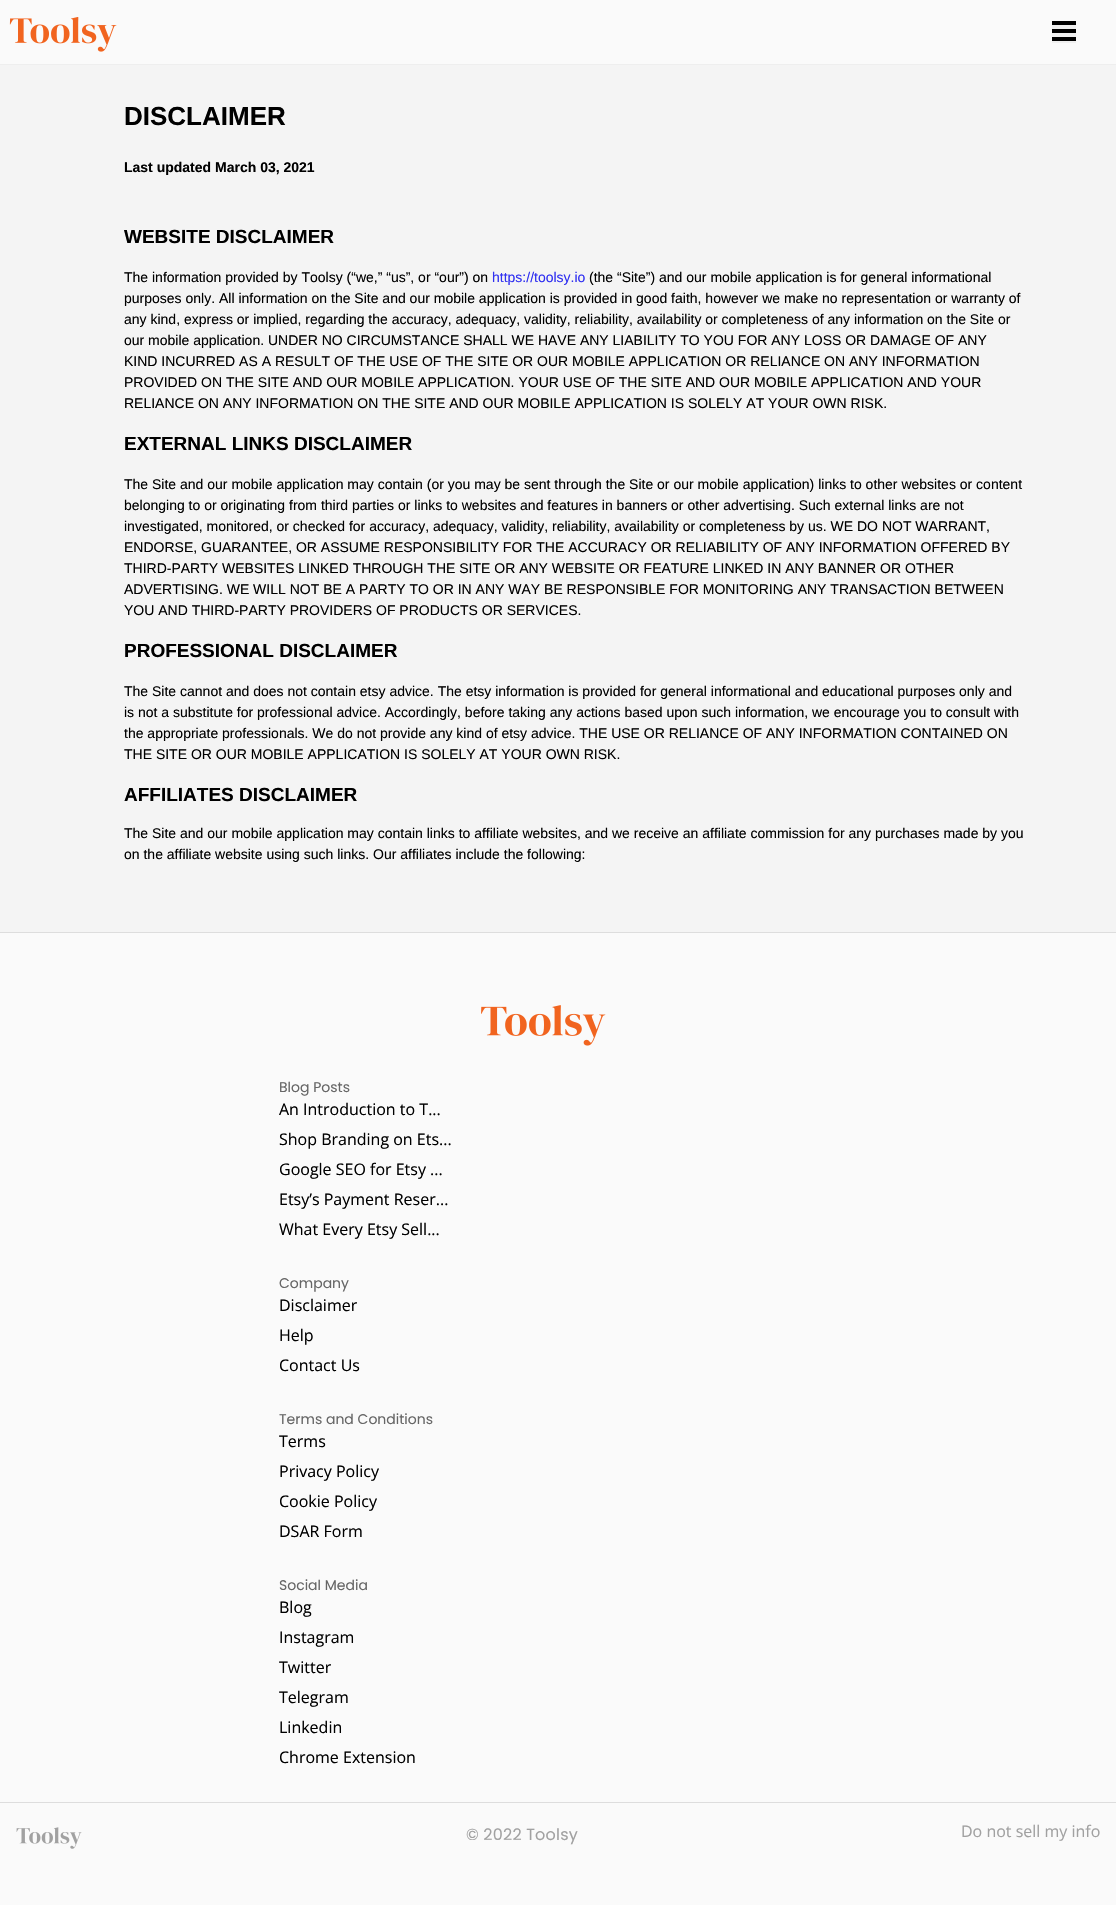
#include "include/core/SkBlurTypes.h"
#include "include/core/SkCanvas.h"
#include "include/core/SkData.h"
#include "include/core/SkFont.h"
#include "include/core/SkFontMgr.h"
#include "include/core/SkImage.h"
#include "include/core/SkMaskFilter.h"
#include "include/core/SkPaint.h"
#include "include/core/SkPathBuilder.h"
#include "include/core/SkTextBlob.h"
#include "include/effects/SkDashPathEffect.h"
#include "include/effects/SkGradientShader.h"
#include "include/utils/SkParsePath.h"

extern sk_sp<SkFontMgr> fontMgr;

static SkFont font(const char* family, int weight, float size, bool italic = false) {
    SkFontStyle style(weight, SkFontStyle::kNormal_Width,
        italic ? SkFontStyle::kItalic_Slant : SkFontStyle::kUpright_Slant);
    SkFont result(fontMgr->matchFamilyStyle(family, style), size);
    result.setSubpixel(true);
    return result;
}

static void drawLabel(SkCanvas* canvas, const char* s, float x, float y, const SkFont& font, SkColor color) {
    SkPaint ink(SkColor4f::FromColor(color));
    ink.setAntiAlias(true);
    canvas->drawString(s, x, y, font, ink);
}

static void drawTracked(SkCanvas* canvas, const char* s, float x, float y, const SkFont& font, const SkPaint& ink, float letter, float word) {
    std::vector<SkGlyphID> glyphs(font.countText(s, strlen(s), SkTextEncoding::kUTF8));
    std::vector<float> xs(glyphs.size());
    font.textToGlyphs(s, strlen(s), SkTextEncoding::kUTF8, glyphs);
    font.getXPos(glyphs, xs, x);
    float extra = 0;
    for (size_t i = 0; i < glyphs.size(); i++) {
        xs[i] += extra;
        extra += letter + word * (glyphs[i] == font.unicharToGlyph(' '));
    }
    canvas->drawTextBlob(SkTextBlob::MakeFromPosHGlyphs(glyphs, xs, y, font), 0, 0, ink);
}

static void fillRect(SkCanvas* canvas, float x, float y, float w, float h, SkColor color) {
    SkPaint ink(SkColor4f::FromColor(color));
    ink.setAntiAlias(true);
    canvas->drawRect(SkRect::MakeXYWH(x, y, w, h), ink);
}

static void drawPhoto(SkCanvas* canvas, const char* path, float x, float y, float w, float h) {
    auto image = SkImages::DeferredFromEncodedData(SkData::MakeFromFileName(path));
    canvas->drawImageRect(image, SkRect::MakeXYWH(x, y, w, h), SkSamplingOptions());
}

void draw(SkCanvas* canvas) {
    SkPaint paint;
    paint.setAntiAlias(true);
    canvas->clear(0xFFFAFAFA);
    drawPhoto(canvas, "assets/img1.png", 9, 17, 108, 35);
    fillRect(canvas, 1052, 25, 24, 18, 0xFFEFEFEF);
    drawPhoto(canvas, "assets/img2.png", 1052, 21, 24, 20);
    fillRect(canvas, 0, 64, 1116, 1, 0xFFEEEEEE);
    fillRect(canvas, 0, 65, 1116, 867, 0xFFF4F4F4);
    SkFont font1 = font("Liberation Sans", 700, 26);
    drawLabel(canvas, "DISCLAIMER", 124, 125, font1, 0xFF000000);
    SkFont font2 = font("Liberation Sans", 700, 14);
    drawLabel(canvas, "Last updated March 03, 2021", 124, 172, font2, 0xFF000000);
    SkFont font3 = font("Liberation Sans", 700, 19);
    drawLabel(canvas, "WEBSITE DISCLAIMER", 124, 243, font3, 0xFF000000);
    SkFont font4 = font("Liberation Sans", 400, 14);
    drawLabel(canvas, "The information provided by Toolsy (“we,” “us”, or “our”) on", 124, 282, font4, 0xFF000000);
    drawLabel(canvas, "https://toolsy.io", 492, 282, font4, 0xFF3030F1);
    drawLabel(canvas, "(the “Site”) and our mobile application is for general informational", 589, 282, font4, 0xFF000000);
    drawLabel(canvas, "purposes only. All information on the Site and our mobile application is provided in good faith, however we make no representation or warranty of", 124, 303, font4, 0xFF000000);
    drawLabel(canvas, "any kind, express or implied, regarding the accuracy, adequacy, validity, reliability, availability or completeness of any information on the Site or", 124, 324, font4, 0xFF000000);
    drawLabel(canvas, "our mobile application. UNDER NO CIRCUMSTANCE SHALL WE HAVE ANY LIABILITY TO YOU FOR ANY LOSS OR DAMAGE OF ANY", 124, 345, font4, 0xFF000000);
    drawLabel(canvas, "KIND INCURRED AS A RESULT OF THE USE OF THE SITE OR OUR MOBILE APPLICATION OR RELIANCE ON ANY INFORMATION", 124, 366, font4, 0xFF000000);
    drawLabel(canvas, "PROVIDED ON THE SITE AND OUR MOBILE APPLICATION. YOUR USE OF THE SITE AND OUR MOBILE APPLICATION AND YOUR", 124, 387, font4, 0xFF000000);
    drawLabel(canvas, "RELIANCE ON ANY INFORMATION ON THE SITE AND OUR MOBILE APPLICATION IS SOLELY AT YOUR OWN RISK.", 124, 408, font4, 0xFF000000);
    drawLabel(canvas, "EXTERNAL LINKS DISCLAIMER", 124, 450, font3, 0xFF000000);
    drawLabel(canvas, "The Site and our mobile application may contain (or you may be sent through the Site or our mobile application) links to other websites or content", 124, 489, font4, 0xFF000000);
    drawLabel(canvas, "belonging to or originating from third parties or links to websites and features in banners or other advertising. Such external links are not", 124, 510, font4, 0xFF000000);
    drawLabel(canvas, "investigated, monitored, or checked for accuracy, adequacy, validity, reliability, availability or completeness by us. WE DO NOT WARRANT,", 124, 531, font4, 0xFF000000);
    drawLabel(canvas, "ENDORSE, GUARANTEE, OR ASSUME RESPONSIBILITY FOR THE ACCURACY OR RELIABILITY OF ANY INFORMATION OFFERED BY", 124, 552, font4, 0xFF000000);
    drawLabel(canvas, "THIRD-PARTY WEBSITES LINKED THROUGH THE SITE OR ANY WEBSITE OR FEATURE LINKED IN ANY BANNER OR OTHER", 124, 573, font4, 0xFF000000);
    drawLabel(canvas, "ADVERTISING. WE WILL NOT BE A PARTY TO OR IN ANY WAY BE RESPONSIBLE FOR MONITORING ANY TRANSACTION BETWEEN", 124, 594, font4, 0xFF000000);
    drawLabel(canvas, "YOU AND THIRD-PARTY PROVIDERS OF PRODUCTS OR SERVICES.", 124, 615, font4, 0xFF000000);
    drawLabel(canvas, "PROFESSIONAL DISCLAIMER", 124, 657, font3, 0xFF000000);
    drawLabel(canvas, "The Site cannot and does not contain etsy advice. The etsy information is provided for general informational and educational purposes only and", 124, 696, font4, 0xFF000000);
    drawLabel(canvas, "is not a substitute for professional advice. Accordingly, before taking any actions based upon such information, we encourage you to consult with", 124, 717, font4, 0xFF000000);
    drawLabel(canvas, "the appropriate professionals. We do not provide any kind of etsy advice. THE USE OR RELIANCE OF ANY INFORMATION CONTAINED ON", 124, 738, font4, 0xFF000000);
    drawLabel(canvas, "THE SITE OR OUR MOBILE APPLICATION IS SOLELY AT YOUR OWN RISK.", 124, 759, font4, 0xFF000000);
    drawLabel(canvas, "AFFILIATES DISCLAIMER", 124, 801, font3, 0xFF000000);
    drawLabel(canvas, "The Site and our mobile application may contain links to affiliate websites, and we receive an affiliate commission for any purchases made by you", 124, 838, font4, 0xFF000000);
    drawLabel(canvas, "on the affiliate website using such links. Our affiliates include the following:", 124, 859, font4, 0xFF000000);
    fillRect(canvas, 0, 932, 1116, 1, 0xFFDDDDDD);
    drawPhoto(canvas, "assets/img3.png", 481, 1005, 125, 41);
    SkFont font5 = font("Poppins", 400, 14);
    drawLabel(canvas, "Blog Posts", 279, 1092, font5, 0xFF666666);
    SkFont font6 = font("Open Sans", 400, 16);
    drawLabel(canvas, "An Introduction to T...", 279, 1115, font6, 0xFF000000);
    drawLabel(canvas, "Shop Branding on Ets...", 279, 1145, font6, 0xFF000000);
    drawLabel(canvas, "Google SEO for Etsy ...", 279, 1175, font6, 0xFF000000);
    drawLabel(canvas, "Etsy’s Payment Reser...", 279, 1205, font6, 0xFF000000);
    drawLabel(canvas, "What Every Etsy Sell...", 279, 1235, font6, 0xFF000000);
    drawLabel(canvas, "Company", 279, 1288, font5, 0xFF666666);
    drawLabel(canvas, "Disclaimer", 279, 1311, font6, 0xFF000000);
    drawLabel(canvas, "Help", 279, 1341, font6, 0xFF000000);
    drawLabel(canvas, "Contact Us", 279, 1371, font6, 0xFF000000);
    drawLabel(canvas, "Terms and Conditions", 279, 1424, font5, 0xFF666666);
    drawLabel(canvas, "Terms", 279, 1447, font6, 0xFF000000);
    drawLabel(canvas, "Privacy Policy", 279, 1477, font6, 0xFF000000);
    drawLabel(canvas, "Cookie Policy", 279, 1507, font6, 0xFF000000);
    drawLabel(canvas, "DSAR Form", 279, 1537, font6, 0xFF000000);
    drawLabel(canvas, "Social Media", 279, 1590, font5, 0xFF666666);
    drawLabel(canvas, "Blog", 279, 1613, font6, 0xFF000000);
    drawLabel(canvas, "Instagram", 279, 1643, font6, 0xFF000000);
    drawLabel(canvas, "Twitter", 279, 1673, font6, 0xFF000000);
    drawLabel(canvas, "Telegram", 279, 1703, font6, 0xFF000000);
    drawLabel(canvas, "Linkedin", 279, 1733, font6, 0xFF000000);
    drawLabel(canvas, "Chrome Extension", 279, 1763, font6, 0xFF000000);
    fillRect(canvas, 0, 1802, 1116, 1, 0xFFDDDDDD);
    drawPhoto(canvas, "assets/img4.png", 16, 1827, 66, 22);
    SkFont font7 = font("Poppins", 400, 16);
    paint.setColor(0xFFA1A1A1);
    drawTracked(canvas, "© 2022 Toolsy", 466, 1840, font7, paint, 0.2f, 0);
    drawLabel(canvas, "Do not sell my info", 961, 1837, font6, 0xFFA1A1A1);
}
